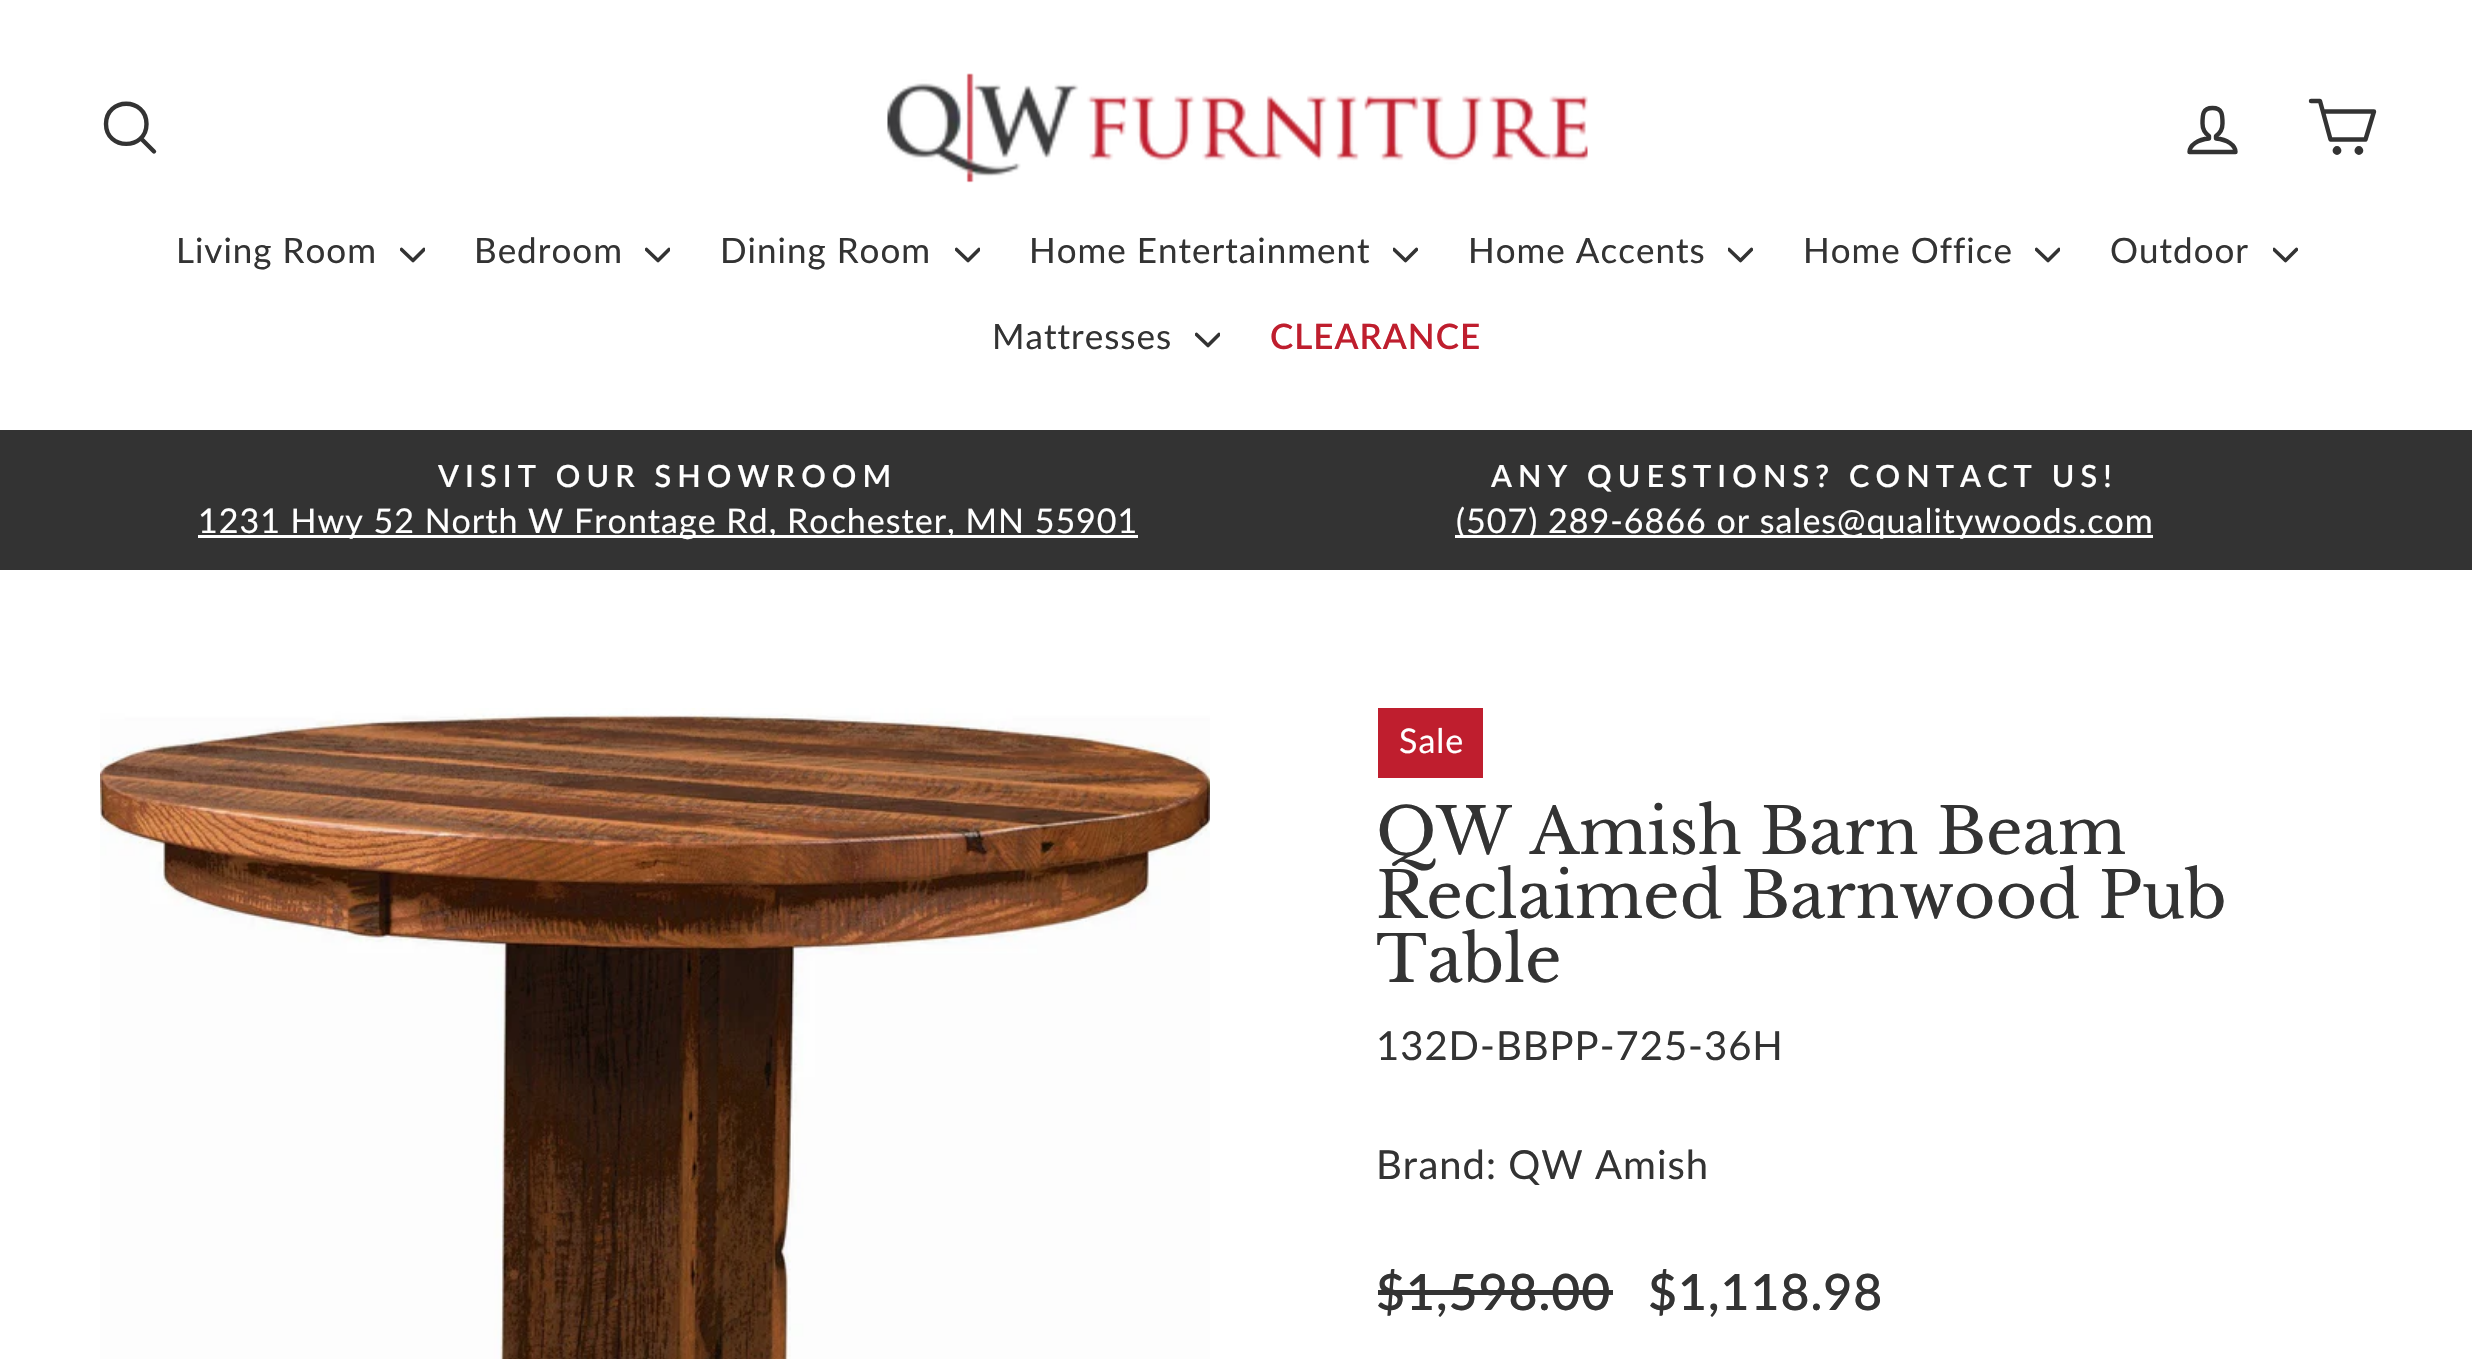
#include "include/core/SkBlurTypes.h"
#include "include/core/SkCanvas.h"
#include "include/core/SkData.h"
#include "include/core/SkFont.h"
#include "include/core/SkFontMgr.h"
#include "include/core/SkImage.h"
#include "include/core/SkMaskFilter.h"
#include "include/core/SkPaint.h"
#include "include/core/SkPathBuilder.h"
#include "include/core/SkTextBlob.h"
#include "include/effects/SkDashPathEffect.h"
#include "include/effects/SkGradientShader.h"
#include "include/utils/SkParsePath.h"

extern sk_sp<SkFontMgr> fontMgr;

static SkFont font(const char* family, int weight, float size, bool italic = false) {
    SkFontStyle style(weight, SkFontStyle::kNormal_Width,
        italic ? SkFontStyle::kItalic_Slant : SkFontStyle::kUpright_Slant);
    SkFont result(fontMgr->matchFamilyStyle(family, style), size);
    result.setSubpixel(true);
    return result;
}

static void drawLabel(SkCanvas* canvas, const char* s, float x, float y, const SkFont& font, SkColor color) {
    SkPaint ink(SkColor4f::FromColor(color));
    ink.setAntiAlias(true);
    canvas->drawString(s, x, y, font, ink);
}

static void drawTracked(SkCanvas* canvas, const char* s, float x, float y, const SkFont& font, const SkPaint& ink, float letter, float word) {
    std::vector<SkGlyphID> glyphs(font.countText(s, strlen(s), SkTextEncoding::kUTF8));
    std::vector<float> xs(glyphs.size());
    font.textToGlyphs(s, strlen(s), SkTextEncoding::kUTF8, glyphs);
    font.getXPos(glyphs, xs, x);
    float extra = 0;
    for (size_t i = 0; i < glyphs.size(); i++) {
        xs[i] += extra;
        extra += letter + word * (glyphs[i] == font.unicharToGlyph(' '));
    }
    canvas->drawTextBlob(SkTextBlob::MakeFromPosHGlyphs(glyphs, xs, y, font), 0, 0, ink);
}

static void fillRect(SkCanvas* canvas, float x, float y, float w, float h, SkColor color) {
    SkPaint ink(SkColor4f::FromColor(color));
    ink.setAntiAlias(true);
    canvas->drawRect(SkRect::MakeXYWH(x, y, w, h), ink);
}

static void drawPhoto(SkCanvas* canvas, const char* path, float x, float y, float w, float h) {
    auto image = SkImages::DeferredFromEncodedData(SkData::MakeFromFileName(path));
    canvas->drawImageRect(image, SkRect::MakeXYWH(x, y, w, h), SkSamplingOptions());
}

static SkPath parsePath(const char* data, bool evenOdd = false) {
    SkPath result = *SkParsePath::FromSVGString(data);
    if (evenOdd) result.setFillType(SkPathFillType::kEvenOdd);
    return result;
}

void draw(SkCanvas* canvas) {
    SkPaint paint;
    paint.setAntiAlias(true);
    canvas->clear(0xFFFFFFFF);
    paint.setStroke(true);
    paint.setStrokeWidth(4.4f);
    paint.setStrokeCap(SkPaint::kRound_Cap);
    paint.setStrokeJoin(SkPaint::kRound_Join);
    paint.setColor(0xFF333333);
    canvas->drawPath(parsePath("M146.5 124C146.5 150.5 106 150.5 106 124C106 97 146.5 97 146.5 124ZM154 151.5L141 138.5"), paint);
    drawPhoto(canvas, "assets/img1.png", 887, 73, 701, 110);
    canvas->drawPath(parsePath("M2216 138.5V136C2219.5 133.5 2222.5 128.5 2222.5 123.5C2222.5 115 2222.5 108 2212.5 108C2202.5 108 2202.5 115 2202.5 123.5C2202.5 128.5 2205.5 133.5 2209 136V138.5C2198 139.5 2189.5 145 2189.5 152H2235.5C2235.5 145 2227 139.5 2216 138.5Z"), paint);
    canvas->drawPath(parsePath("M2323 111.5H2374L2365.5 139.5H2330.5L2320 101H2311"), paint);
    paint.setStrokeCap(SkPaint::kButt_Cap);
    paint.setStrokeJoin(SkPaint::kMiter_Join);
    canvas->drawCircle(2337, 150.5f, 2.2f, paint);
    canvas->drawCircle(2358.9f, 150.5f, 2.2f, paint);
    SkFont font1 = font("Lato", 400, 35);
    paint.setStroke(false);
    drawTracked(canvas, "Living Room", 176, 263, font1, paint, 1, 0);
    canvas->save();
    canvas->clipRect(SkRect::MakeXYWH(400, 243, 25, 25));
    paint.setStroke(true);
    paint.setStrokeWidth(3.6f);
    paint.setStrokeCap(SkPaint::kRound_Cap);
    paint.setStrokeJoin(SkPaint::kRound_Join);
    canvas->drawPath(parsePath("M401.5 249.5L413 260.5L424 249.5"), paint);
    canvas->restore();
    paint.setStroke(false);
    drawTracked(canvas, "Bedroom", 474, 263, font1, paint, 1, 0);
    canvas->save();
    canvas->clipRect(SkRect::MakeXYWH(645, 243, 25, 25));
    paint.setStroke(true);
    canvas->drawPath(parsePath("M646.5 249.5L658 260.5L669 249.5"), paint);
    canvas->restore();
    paint.setStroke(false);
    drawTracked(canvas, "Dining Room", 720, 263, font1, paint, 1, 0);
    canvas->save();
    canvas->clipRect(SkRect::MakeXYWH(955, 243, 25, 25));
    paint.setStroke(true);
    canvas->drawPath(parsePath("M956.5 249.5L968 260.5L979 249.5"), paint);
    canvas->restore();
    paint.setStroke(false);
    drawTracked(canvas, "Home Entertainment", 1029, 263, font1, paint, 1, 0);
    canvas->save();
    canvas->clipRect(SkRect::MakeXYWH(1393, 243, 25, 25));
    paint.setStroke(true);
    canvas->drawPath(parsePath("M1394 249.5L1405.5 260.5L1416.5 249.5"), paint);
    canvas->restore();
    paint.setStroke(false);
    drawTracked(canvas, "Home Accents", 1468, 263, font1, paint, 1, 0);
    canvas->save();
    canvas->clipRect(SkRect::MakeXYWH(1728, 243, 25, 25));
    paint.setStroke(true);
    canvas->drawPath(parsePath("M1729 249.5L1740.5 260.5L1751.5 249.5"), paint);
    canvas->restore();
    paint.setStroke(false);
    drawTracked(canvas, "Home Office", 1803, 263, font1, paint, 1, 0);
    canvas->save();
    canvas->clipRect(SkRect::MakeXYWH(2035, 243, 25, 25));
    paint.setStroke(true);
    canvas->drawPath(parsePath("M2036.5 249.5L2048 260.5L2059 249.5"), paint);
    canvas->restore();
    paint.setStroke(false);
    drawTracked(canvas, "Outdoor", 2110, 263, font1, paint, 1, 0);
    canvas->save();
    canvas->clipRect(SkRect::MakeXYWH(2273, 243, 25, 25));
    paint.setStroke(true);
    canvas->drawPath(parsePath("M2274 249.5L2285.5 260.5L2296.5 249.5"), paint);
    canvas->restore();
    paint.setStroke(false);
    drawTracked(canvas, "Mattresses", 992, 349, font1, paint, 1, 0);
    canvas->save();
    canvas->clipRect(SkRect::MakeXYWH(1195, 328, 25, 25));
    paint.setStroke(true);
    canvas->drawPath(parsePath("M1196.5 334.5L1208 345.5L1219 334.5"), paint);
    canvas->restore();
    SkFont font2 = font("Lato", 600, 35);
    paint.setStroke(false);
    paint.setColor(0xFFBF1E2E);
    drawTracked(canvas, "CLEARANCE", 1270, 349, font2, paint, 1, 0);
    fillRect(canvas, 0, 430, 2472, 140, 0xFF333333);
    SkFont font3 = font("Lato", 600, 30.6f);
    paint.setColor(0xFFFFFFFF);
    drawTracked(canvas, "VISIT OUR SHOWROOM", 438, 487, font3, paint, 6.1f, 0);
    fillRect(canvas, 198, 535, 940, 3, 0xFFFFFFFF);
    SkFont font4 = font("Lato", 400, 34);
    drawTracked(canvas, "1231 Hwy 52 North W Frontage Rd, Rochester, MN 55901", 198, 533, font4, paint, 1, 0);
    drawTracked(canvas, "ANY QUESTIONS? CONTACT US!", 1491, 487, font3, paint, 6.1f, 0);
    fillRect(canvas, 1455, 535, 698, 3, 0xFFFFFFFF);
    drawTracked(canvas, "(507) 289-6866 or sales@qualitywoods.com", 1456, 533, font4, paint, 1, 0);
    drawPhoto(canvas, "assets/img2.png", 100, 708, 1110, 651);
    fillRect(canvas, 1378, 708, 105, 70, 0xFFBF1E2E);
    drawTracked(canvas, "Sale", 1399, 753, font4, paint, 1, 0);
    SkFont font5 = font("Libre Baskerville", 400, 63.75f);
    drawLabel(canvas, "QW Amish Barn Beam", 1376, 854, font5, 0xFF333333);
    drawLabel(canvas, "Reclaimed Barnwood Pub", 1376, 918, font5, 0xFF333333);
    drawLabel(canvas, "Table", 1376, 982, font5, 0xFF333333);
    SkFont font6 = font("Lato", 400, 40);
    paint.setColor(0xFF333333);
    drawTracked(canvas, "132D-BBPP-725-36H", 1376, 1060, font6, paint, 1, 0);
    drawTracked(canvas, "Brand: QW Amish", 1376, 1179, font6, paint, 1, 0);
    SkFont font7 = font("Lato", 600, 50);
    drawTracked(canvas, "$1,598.00", 1376, 1310, font7, paint, 1, 0);
    fillRect(canvas, 1378, 1290, 235, 5, 0xFF333333);
    drawTracked(canvas, "$1,118.98", 1648, 1310, font7, paint, 1, 0);
}
